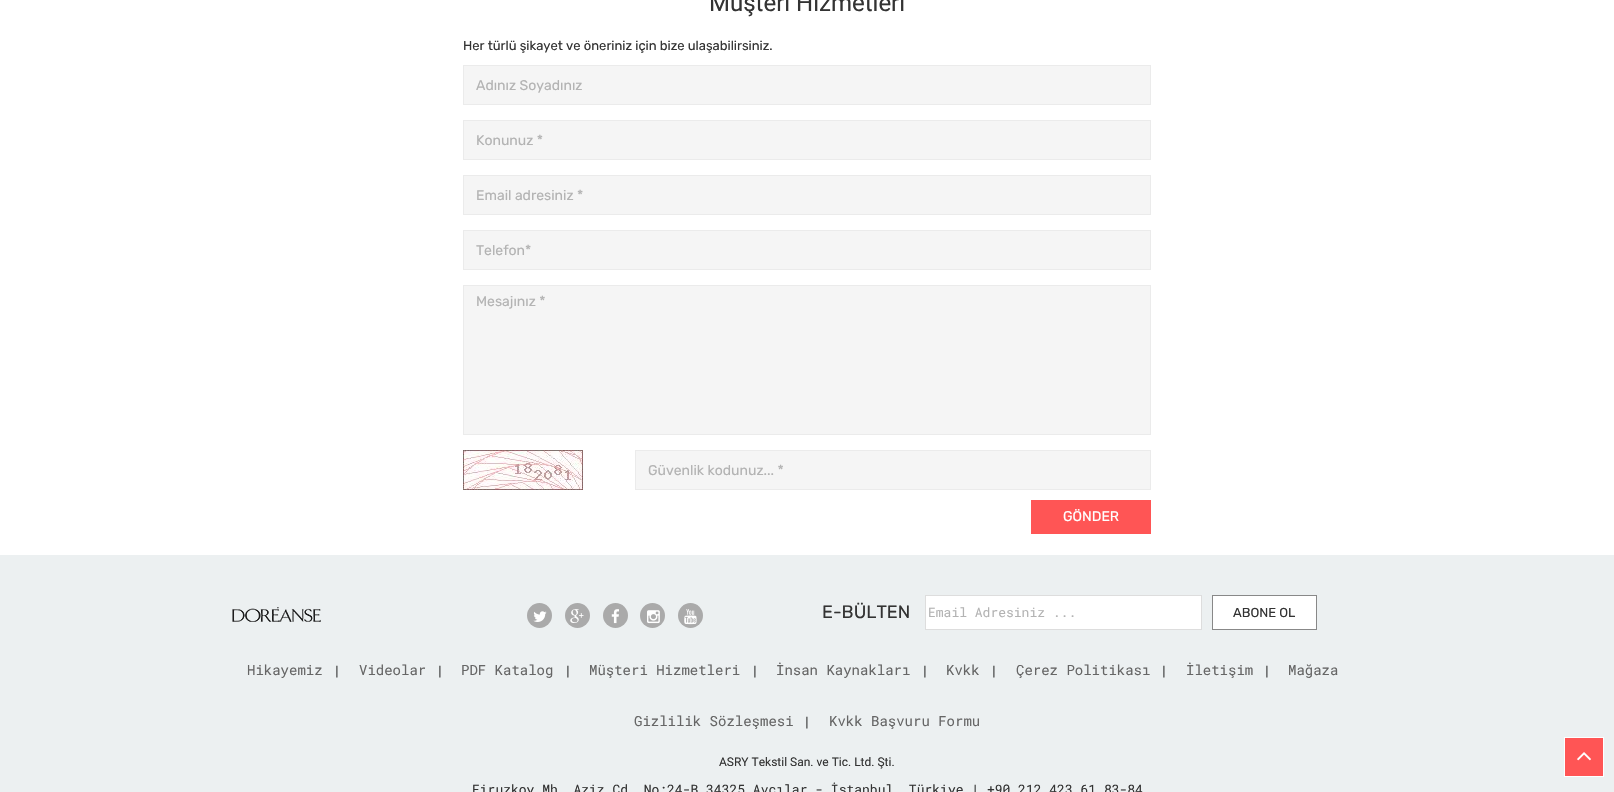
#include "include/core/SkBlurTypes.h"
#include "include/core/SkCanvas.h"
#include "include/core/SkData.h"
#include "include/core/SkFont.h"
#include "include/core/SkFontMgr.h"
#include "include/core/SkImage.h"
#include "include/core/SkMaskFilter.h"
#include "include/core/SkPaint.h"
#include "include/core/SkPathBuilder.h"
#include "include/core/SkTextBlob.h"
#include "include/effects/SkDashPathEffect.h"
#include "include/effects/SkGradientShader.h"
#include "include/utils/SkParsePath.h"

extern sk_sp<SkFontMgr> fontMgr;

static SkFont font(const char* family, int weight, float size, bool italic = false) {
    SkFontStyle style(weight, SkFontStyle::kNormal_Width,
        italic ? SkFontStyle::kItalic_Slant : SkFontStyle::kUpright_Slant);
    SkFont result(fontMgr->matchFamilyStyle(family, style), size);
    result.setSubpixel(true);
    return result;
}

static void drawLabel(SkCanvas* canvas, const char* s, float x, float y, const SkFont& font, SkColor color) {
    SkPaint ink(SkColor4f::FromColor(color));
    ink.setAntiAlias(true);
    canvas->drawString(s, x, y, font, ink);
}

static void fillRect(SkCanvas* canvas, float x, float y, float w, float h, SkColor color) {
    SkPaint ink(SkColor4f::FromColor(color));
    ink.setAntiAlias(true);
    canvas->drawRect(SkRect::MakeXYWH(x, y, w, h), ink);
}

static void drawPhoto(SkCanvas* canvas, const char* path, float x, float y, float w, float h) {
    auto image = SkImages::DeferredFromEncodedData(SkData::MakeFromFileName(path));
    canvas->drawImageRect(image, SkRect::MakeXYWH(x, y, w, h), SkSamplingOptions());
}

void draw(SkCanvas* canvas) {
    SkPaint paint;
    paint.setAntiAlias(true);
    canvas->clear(0xFFFFFFFF);
    SkFont font1 = font("Roboto", 400, 24);
    drawLabel(canvas, "Müşteri Hizmetleri", 709, 11, font1, 0xFF333333);
    SkFont font2 = font("Rubik", 400, 13);
    drawLabel(canvas, "Her türlü şikayet ve öneriniz için bize ulaşabilirsiniz.", 463, 50, font2, 0xFF333333);
    paint.setColor(0xFFF5F5F5);
    canvas->drawRect(SkRect::MakeXYWH(463.5f, 65.5f, 687, 39), paint);
    paint.setStroke(true);
    paint.setStrokeWidth(1);
    paint.setColor(0xFFEBEBEB);
    canvas->drawRect(SkRect::MakeXYWH(463.5f, 65.5f, 687, 39), paint);
    SkFont font3 = font("Rubik", 400, 14);
    drawLabel(canvas, "Adınız Soyadınız", 476, 90, font3, 0xFFB3B3B3);
    paint.setStroke(false);
    paint.setColor(0xFFF5F5F5);
    canvas->drawRect(SkRect::MakeXYWH(463.5f, 120.5f, 687, 39), paint);
    paint.setStroke(true);
    paint.setColor(0xFFEBEBEB);
    canvas->drawRect(SkRect::MakeXYWH(463.5f, 120.5f, 687, 39), paint);
    drawLabel(canvas, "Konunuz *", 476, 145, font3, 0xFFB3B3B3);
    paint.setStroke(false);
    paint.setColor(0xFFF5F5F5);
    canvas->drawRect(SkRect::MakeXYWH(463.5f, 175.5f, 687, 39), paint);
    paint.setStroke(true);
    paint.setColor(0xFFEBEBEB);
    canvas->drawRect(SkRect::MakeXYWH(463.5f, 175.5f, 687, 39), paint);
    drawLabel(canvas, "Email adresiniz *", 476, 200, font3, 0xFFB3B3B3);
    paint.setStroke(false);
    paint.setColor(0xFFF5F5F5);
    canvas->drawRect(SkRect::MakeXYWH(463.5f, 230.5f, 687, 39), paint);
    paint.setStroke(true);
    paint.setColor(0xFFEBEBEB);
    canvas->drawRect(SkRect::MakeXYWH(463.5f, 230.5f, 687, 39), paint);
    drawLabel(canvas, "Telefon*", 476, 255, font3, 0xFFB3B3B3);
    paint.setStroke(false);
    paint.setColor(0xFFF5F5F5);
    canvas->drawRect(SkRect::MakeXYWH(463.5f, 285.5f, 687, 149), paint);
    paint.setStroke(true);
    paint.setColor(0xFFEBEBEB);
    canvas->drawRect(SkRect::MakeXYWH(463.5f, 285.5f, 687, 149), paint);
    drawLabel(canvas, "Mesajınız *", 476, 306, font3, 0xFFB3B3B3);
    drawPhoto(canvas, "assets/img1.png", 463, 450, 120, 40);
    paint.setStroke(false);
    paint.setColor(0xFFF5F5F5);
    canvas->drawRect(SkRect::MakeXYWH(635.5f, 450.5f, 515, 39), paint);
    paint.setStroke(true);
    paint.setColor(0xFFEBEBEB);
    canvas->drawRect(SkRect::MakeXYWH(635.5f, 450.5f, 515, 39), paint);
    drawLabel(canvas, "Güvenlik kodunuz... *", 648, 475, font3, 0xFFB3B3B3);
    fillRect(canvas, 1031, 500, 120, 34, 0xFFFF5555);
    drawLabel(canvas, "GÖNDER", 1063, 521, font3, 0xFFFFFFFF);
    fillRect(canvas, 0, 555, 1614, 237, 0xFFECF0F1);
    drawPhoto(canvas, "assets/img2.png", 232, 607, 89, 15);
    paint.setStroke(false);
    paint.setColor(0xFFAAAAAA);
    canvas->drawCircle(539.5f, 615.5f, 12.5f, paint);
    drawPhoto(canvas, "assets/img3.png", 533, 611, 14, 11);
    canvas->drawCircle(577.5f, 615.5f, 12.5f, paint);
    drawPhoto(canvas, "assets/img4.png", 570, 609, 14, 14);
    canvas->drawCircle(615.5f, 615.5f, 12.5f, paint);
    drawPhoto(canvas, "assets/img5.png", 611, 609, 8, 15);
    canvas->drawCircle(652.5f, 615.5f, 12.5f, paint);
    drawPhoto(canvas, "assets/img6.png", 647, 610, 13, 14);
    canvas->drawCircle(690.5f, 615.5f, 12.5f, paint);
    drawPhoto(canvas, "assets/img7.png", 684, 609, 13, 16);
    SkFont font4 = font("Rubik", 400, 18);
    drawLabel(canvas, "E-BÜLTEN", 822, 618, font4, 0xFF333333);
    paint.setColor(0xFFFFFFFF);
    canvas->drawRect(SkRect::MakeXYWH(925.5f, 595.5f, 276, 34), paint);
    paint.setStroke(true);
    paint.setColor(0xFFDDDDDD);
    canvas->drawRect(SkRect::MakeXYWH(925.5f, 595.5f, 276, 34), paint);
    SkFont font5 = font("Roboto Mono", 400, 13);
    drawLabel(canvas, "Email Adresiniz ...", 928, 617, font5, 0xFFB3B3B3);
    paint.setStroke(false);
    paint.setColor(0xFFFFFFFF);
    canvas->drawRect(SkRect::MakeXYWH(1212.5f, 595.5f, 104, 34), paint);
    paint.setStroke(true);
    paint.setColor(0xFF888888);
    canvas->drawRect(SkRect::MakeXYWH(1212.5f, 595.5f, 104, 34), paint);
    drawLabel(canvas, "ABONE OL", 1233, 617, font2, 0xFF333333);
    SkFont font6 = font("Roboto Mono", 400, 14);
    drawLabel(canvas, "Hikayemiz", 247, 675, font6, 0xFF666666);
    drawLabel(canvas, "|", 333, 675, font5, 0xFF333333);
    drawLabel(canvas, "Videolar", 359, 675, font6, 0xFF666666);
    drawLabel(canvas, "|", 436, 675, font5, 0xFF333333);
    drawLabel(canvas, "PDF Katalog", 461, 675, font6, 0xFF666666);
    drawLabel(canvas, "|", 564, 675, font5, 0xFF333333);
    drawLabel(canvas, "Müşteri Hizmetleri", 589, 675, font6, 0xFF666666);
    drawLabel(canvas, "|", 751, 675, font5, 0xFF333333);
    drawLabel(canvas, "İnsan Kaynakları", 776, 675, font6, 0xFF666666);
    drawLabel(canvas, "|", 921, 675, font5, 0xFF333333);
    drawLabel(canvas, "Kvkk", 946, 675, font6, 0xFF666666);
    drawLabel(canvas, "|", 990, 675, font5, 0xFF333333);
    drawLabel(canvas, "Çerez Politikası", 1016, 675, font6, 0xFF666666);
    drawLabel(canvas, "|", 1160, 675, font5, 0xFF333333);
    drawLabel(canvas, "İletişim", 1186, 675, font6, 0xFF666666);
    drawLabel(canvas, "|", 1263, 675, font5, 0xFF333333);
    drawLabel(canvas, "Mağaza", 1288, 675, font6, 0xFF666666);
    drawLabel(canvas, "Gizlilik Sözleşmesi", 634, 726, font6, 0xFF666666);
    drawLabel(canvas, "|", 803, 726, font5, 0xFF333333);
    drawLabel(canvas, "Kvkk Başvuru Formu", 829, 726, font6, 0xFF666666);
    SkFont font7 = font("Roboto", 400, 12);
    drawLabel(canvas, "ASRY Tekstil San. ve Tic. Ltd. Şti.", 719, 766, font7, 0xFF333333);
    drawLabel(canvas, "Firuzkoy Mh. Aziz Cd. No:24-B 34325 Avcılar - İstanbul, Türkiye | +90 212 423 61 83-84", 472, 794, font5, 0xFF333333);
    paint.setStroke(false);
    paint.setColor(0xFFFF5555);
    canvas->drawRect(SkRect::MakeXYWH(1564.5f, 737.5f, 39, 39), paint);
    paint.setStroke(true);
    paint.setColor(0xFFFFFFFF);
    canvas->drawRect(SkRect::MakeXYWH(1564.5f, 737.5f, 39, 39), paint);
    drawPhoto(canvas, "assets/img8.png", 1577, 752, 14, 9);
}
